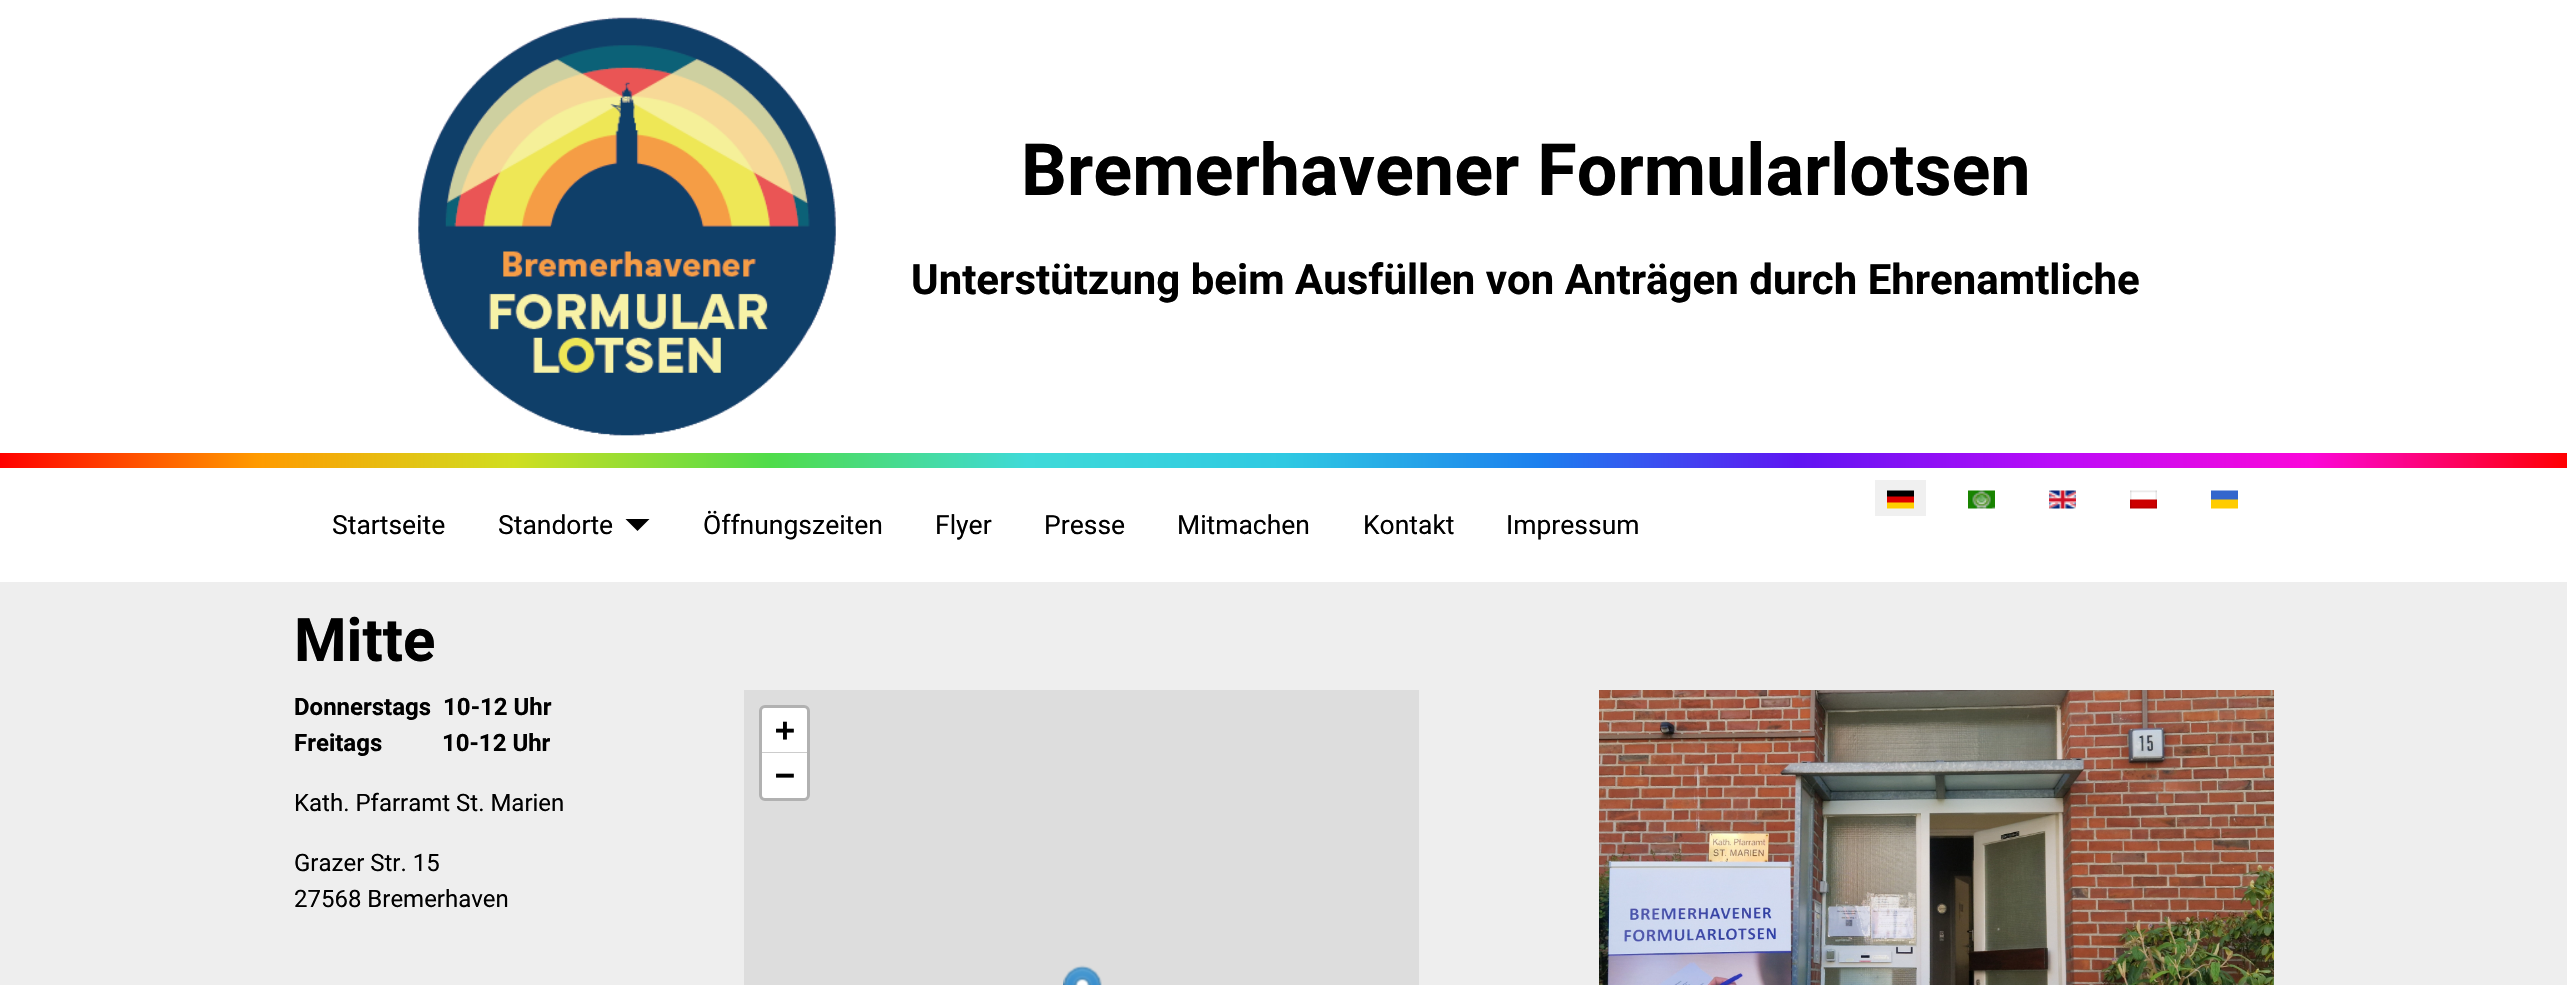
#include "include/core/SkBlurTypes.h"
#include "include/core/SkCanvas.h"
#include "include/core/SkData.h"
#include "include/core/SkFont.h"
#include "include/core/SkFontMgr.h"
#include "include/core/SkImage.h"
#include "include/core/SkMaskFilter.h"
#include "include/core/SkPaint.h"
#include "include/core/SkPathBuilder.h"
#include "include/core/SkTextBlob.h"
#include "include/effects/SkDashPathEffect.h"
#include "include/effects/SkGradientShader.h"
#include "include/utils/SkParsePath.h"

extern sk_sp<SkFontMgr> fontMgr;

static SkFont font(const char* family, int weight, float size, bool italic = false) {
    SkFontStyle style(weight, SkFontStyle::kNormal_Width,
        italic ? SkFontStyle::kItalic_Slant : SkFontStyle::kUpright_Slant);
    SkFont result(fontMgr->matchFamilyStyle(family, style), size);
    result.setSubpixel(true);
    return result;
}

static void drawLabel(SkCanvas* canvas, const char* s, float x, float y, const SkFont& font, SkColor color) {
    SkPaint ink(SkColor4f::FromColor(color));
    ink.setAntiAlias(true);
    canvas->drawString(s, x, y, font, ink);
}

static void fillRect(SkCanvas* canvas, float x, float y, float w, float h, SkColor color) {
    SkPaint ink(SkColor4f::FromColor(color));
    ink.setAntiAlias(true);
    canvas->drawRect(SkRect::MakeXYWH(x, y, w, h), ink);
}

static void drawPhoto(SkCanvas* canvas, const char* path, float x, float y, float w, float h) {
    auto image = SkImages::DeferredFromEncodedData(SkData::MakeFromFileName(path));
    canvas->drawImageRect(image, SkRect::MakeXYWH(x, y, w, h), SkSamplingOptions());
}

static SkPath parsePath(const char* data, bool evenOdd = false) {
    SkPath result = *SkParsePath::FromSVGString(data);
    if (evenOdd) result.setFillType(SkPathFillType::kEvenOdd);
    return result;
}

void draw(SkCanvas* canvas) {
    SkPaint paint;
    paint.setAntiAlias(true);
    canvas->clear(0xFFEEEEEE);
    fillRect(canvas, 0, 0, 2567, 582, 0xFFFFFFFF);
    drawPhoto(canvas, "assets/img1.png", 418, 17, 418, 419);
    SkFont font1 = font("Roboto", 700, 72);
    drawLabel(canvas, "Bremerhavener Formularlotsen", 1021, 195, font1, 0xFF000000);
    SkFont font2 = font("Roboto", 700, 42);
    drawLabel(canvas, "Unterstützung beim Ausfüllen von Anträgen durch Ehrenamtliche", 911, 294, font2, 0xFF000000);
    {
        const SkColor colors[] = {0xFFFF0000, 0xFFFF9A00, 0xFFD0DE21, 0xFF4FDC4A, 0xFF3FDAD8, 0xFF2FC9E2, 0xFF1C7FEE, 0xFF5F15F2, 0xFFBA0CF8, 0xFFFB07D9, 0xFFFF0000};
        const float stops[] = {0, 0.1f, 0.2f, 0.3f, 0.4f, 0.5f, 0.6f, 0.7f, 0.8f, 0.9f, 1};
        const SkPoint ends[] = {{0, 461}, {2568, 460}};
        paint.setShader(SkGradientShader::MakeLinear(ends, colors, stops, 11, SkTileMode::kClamp));
        paint.setAlpha(255);
    }
    canvas->drawRect(SkRect::MakeXYWH(0, 453, 2567, 15), paint);
    fillRect(canvas, 1875, 480, 51, 36, 0xFFF0F0F0);
    drawPhoto(canvas, "assets/img2.png", 1887, 490, 27, 19);
    drawPhoto(canvas, "assets/img3.png", 1968, 490, 27, 19);
    drawPhoto(canvas, "assets/img4.png", 2049, 490, 27, 19);
    drawPhoto(canvas, "assets/img5.png", 2130, 490, 27, 19);
    drawPhoto(canvas, "assets/img6.png", 2211, 490, 27, 19);
    SkFont font3 = font("Roboto", 400, 26.5f);
    drawLabel(canvas, "Startseite", 332, 534, font3, 0xFF000000);
    drawLabel(canvas, "Standorte", 498, 534, font3, 0xFF000000);
    paint.setShader(nullptr);
    paint.setColor(0xFF000000);
    canvas->drawPath(parsePath("M625.5 519H649.5L637.5 531Z"), paint);
    drawLabel(canvas, "Öffnungszeiten", 703, 534, font3, 0xFF000000);
    drawLabel(canvas, "Flyer", 935, 534, font3, 0xFF000000);
    drawLabel(canvas, "Presse", 1044, 534, font3, 0xFF000000);
    drawLabel(canvas, "Mitmachen", 1177, 534, font3, 0xFF000000);
    drawLabel(canvas, "Kontakt", 1363, 534, font3, 0xFF000000);
    drawLabel(canvas, "Impressum", 1506, 534, font3, 0xFF000000);
    SkFont font4 = font("Roboto", 700, 60);
    drawLabel(canvas, "Mitte", 294, 661, font4, 0xFF000000);
    SkFont font5 = font("Roboto", 700, 24);
    drawLabel(canvas, "Donnerstags  10-12 Uhr", 294, 715, font5, 0xFF000000);
    drawLabel(canvas, "Freitags          10-12 Uhr", 294, 751, font5, 0xFF000000);
    SkFont font6 = font("Roboto", 400, 24);
    drawLabel(canvas, "Kath. Pfarramt St. Marien", 294, 811, font6, 0xFF000000);
    drawLabel(canvas, "Grazer Str. 15", 294, 871, font6, 0xFF000000);
    drawLabel(canvas, "27568 Bremerhaven", 294, 907, font6, 0xFF000000);
    fillRect(canvas, 744, 690, 675, 295, 0xFFDDDDDD);
    paint.setStroke(true);
    paint.setStrokeWidth(3);
    paint.setColor(0xFFB1B1B1);
    canvas->drawRoundRect(SkRect::MakeXYWH(760.5f, 706.5f, 48, 93), 4.5f, 4.5f, paint);
    paint.setStroke(false);
    paint.setColor(0xFFFFFFFF);
    canvas->drawPath(parsePath("M765 708H804C805.5 708 807 709.5 807 711V753H762V711C762 709.5 763.5 708 765 708Z"), paint);
    fillRect(canvas, 762, 752, 45, 1, 0xFFCCCCCC);
    SkFont font7 = font("DejaVu Sans Mono", 700, 33);
    drawLabel(canvas, "+", 775, 741, font7, 0xFF000000);
    canvas->drawPath(parsePath("M762 753H807V795C807 796.5 805.5 798 804 798H765C763.5 798 762 796.5 762 795Z"), paint);
    drawLabel(canvas, "−", 775, 786, font7, 0xFF000000);
    drawPhoto(canvas, "assets/img7.png", 1063, 965, 39, 20);
    drawPhoto(canvas, "assets/img8.png", 1599, 690, 675, 295);
}
